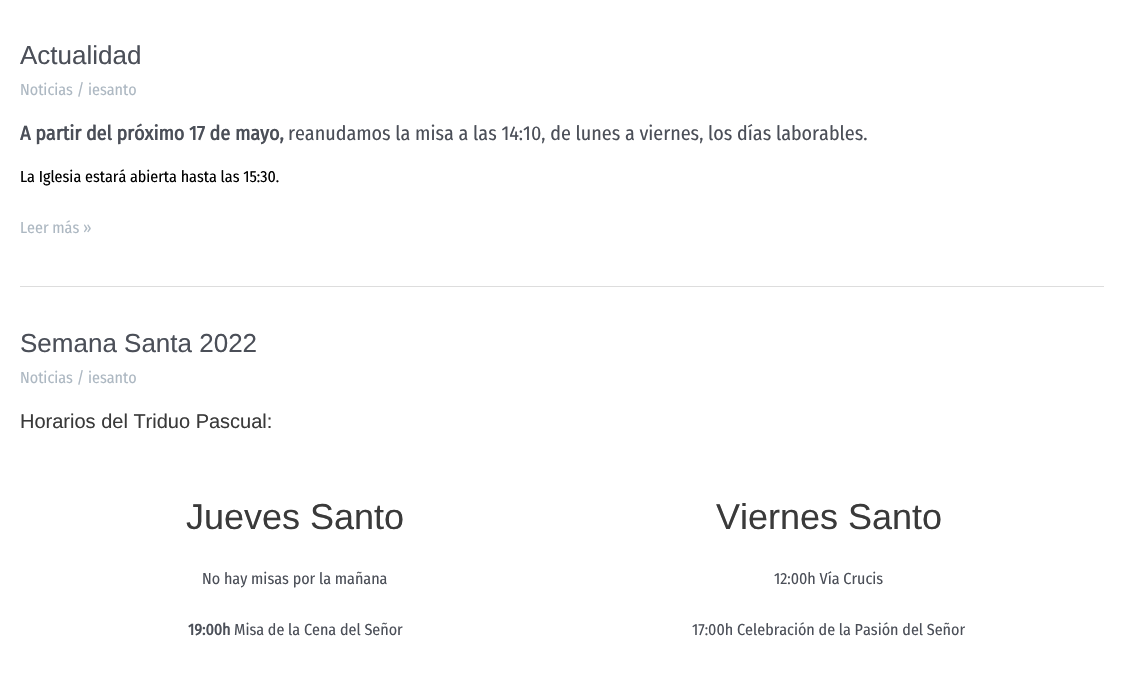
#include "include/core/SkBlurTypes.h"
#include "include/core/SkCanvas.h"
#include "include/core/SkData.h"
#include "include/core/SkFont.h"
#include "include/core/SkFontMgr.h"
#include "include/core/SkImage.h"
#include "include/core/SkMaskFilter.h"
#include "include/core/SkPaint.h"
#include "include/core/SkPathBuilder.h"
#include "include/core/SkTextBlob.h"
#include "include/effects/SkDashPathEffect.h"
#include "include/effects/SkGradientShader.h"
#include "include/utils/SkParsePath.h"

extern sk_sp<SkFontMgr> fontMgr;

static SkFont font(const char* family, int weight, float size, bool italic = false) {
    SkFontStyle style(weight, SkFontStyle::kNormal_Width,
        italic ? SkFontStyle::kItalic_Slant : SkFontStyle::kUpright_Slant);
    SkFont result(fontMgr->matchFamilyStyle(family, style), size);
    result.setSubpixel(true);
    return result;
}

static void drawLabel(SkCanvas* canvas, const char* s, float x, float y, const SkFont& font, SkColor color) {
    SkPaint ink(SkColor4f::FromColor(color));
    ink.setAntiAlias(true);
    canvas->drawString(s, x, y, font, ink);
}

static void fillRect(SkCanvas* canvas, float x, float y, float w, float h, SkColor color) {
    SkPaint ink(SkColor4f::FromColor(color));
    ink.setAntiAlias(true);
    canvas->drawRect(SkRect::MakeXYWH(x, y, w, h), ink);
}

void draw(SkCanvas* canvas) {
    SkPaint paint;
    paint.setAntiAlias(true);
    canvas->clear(0xFFFFFFFF);
    fillRect(canvas, 20, 286, 1084, 1, 0xFFDDDDDD);
    SkFont font1 = font("Liberation Sans", 400, 26);
    drawLabel(canvas, "Actualidad", 20, 64, font1, 0xFF4B4F58);
    SkFont font2 = font("Fira Sans Condensed", 400, 16);
    drawLabel(canvas, "Noticias / iesanto", 20, 95, font2, 0xFFADB8C2);
    SkFont font3 = font("Fira Sans Condensed", 700, 20);
    drawLabel(canvas, "A partir del próximo 17 de mayo,", 20, 140, font3, 0xFF4B4F58);
    SkFont font4 = font("Fira Sans Condensed", 400, 20);
    drawLabel(canvas, "reanudamos la misa a las 14:10, de lunes a viernes, los días laborables.", 288, 140, font4, 0xFF4B4F58);
    drawLabel(canvas, "La Iglesia estará abierta hasta las 15:30.", 20, 182, font2, 0xFF000000);
    drawLabel(canvas, "Leer más »", 20, 233, font2, 0xFFADB8C2);
    drawLabel(canvas, "Semana Santa 2022", 20, 352, font1, 0xFF4B4F58);
    drawLabel(canvas, "Noticias / iesanto", 20, 383, font2, 0xFFADB8C2);
    SkFont font5 = font("Liberation Sans", 400, 20);
    drawLabel(canvas, "Horarios del Triduo Pascual:", 20, 428, font5, 0xFF3A3A3A);
    SkFont font6 = font("Liberation Sans", 400, 36);
    drawLabel(canvas, "Jueves Santo", 186, 529, font6, 0xFF3A3A3A);
    drawLabel(canvas, "No hay misas por la mañana", 202, 584, font2, 0xFF4B4F58);
    SkFont font7 = font("Fira Sans Condensed", 700, 16);
    drawLabel(canvas, "19:00h", 188, 635, font7, 0xFF4B4F58);
    drawLabel(canvas, "Misa de la Cena del Señor", 234, 635, font2, 0xFF4B4F58);
    drawLabel(canvas, "Viernes Santo", 716, 529, font6, 0xFF3A3A3A);
    drawLabel(canvas, "12:00h Vía Crucis", 774, 584, font2, 0xFF4B4F58);
    drawLabel(canvas, "17:00h Celebración de la Pasión del Señor", 692, 635, font2, 0xFF4B4F58);
}
